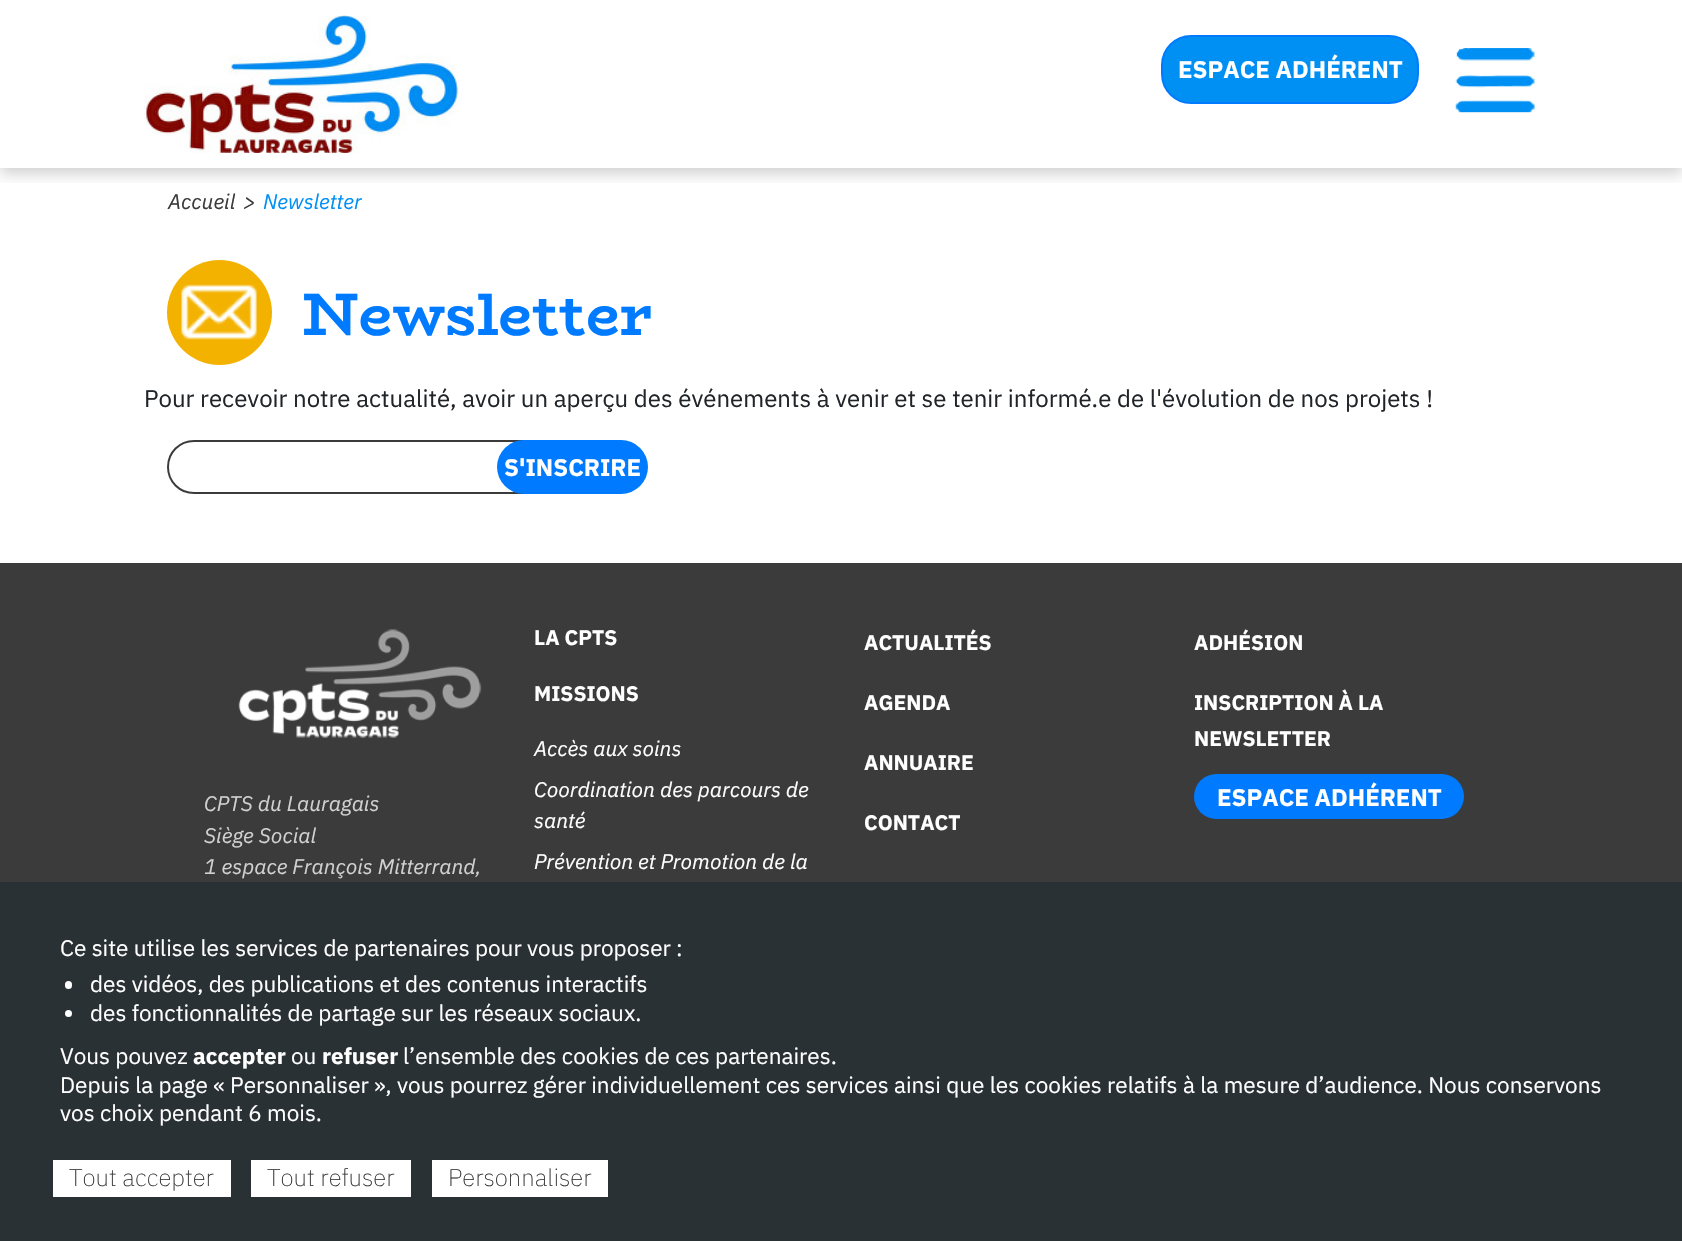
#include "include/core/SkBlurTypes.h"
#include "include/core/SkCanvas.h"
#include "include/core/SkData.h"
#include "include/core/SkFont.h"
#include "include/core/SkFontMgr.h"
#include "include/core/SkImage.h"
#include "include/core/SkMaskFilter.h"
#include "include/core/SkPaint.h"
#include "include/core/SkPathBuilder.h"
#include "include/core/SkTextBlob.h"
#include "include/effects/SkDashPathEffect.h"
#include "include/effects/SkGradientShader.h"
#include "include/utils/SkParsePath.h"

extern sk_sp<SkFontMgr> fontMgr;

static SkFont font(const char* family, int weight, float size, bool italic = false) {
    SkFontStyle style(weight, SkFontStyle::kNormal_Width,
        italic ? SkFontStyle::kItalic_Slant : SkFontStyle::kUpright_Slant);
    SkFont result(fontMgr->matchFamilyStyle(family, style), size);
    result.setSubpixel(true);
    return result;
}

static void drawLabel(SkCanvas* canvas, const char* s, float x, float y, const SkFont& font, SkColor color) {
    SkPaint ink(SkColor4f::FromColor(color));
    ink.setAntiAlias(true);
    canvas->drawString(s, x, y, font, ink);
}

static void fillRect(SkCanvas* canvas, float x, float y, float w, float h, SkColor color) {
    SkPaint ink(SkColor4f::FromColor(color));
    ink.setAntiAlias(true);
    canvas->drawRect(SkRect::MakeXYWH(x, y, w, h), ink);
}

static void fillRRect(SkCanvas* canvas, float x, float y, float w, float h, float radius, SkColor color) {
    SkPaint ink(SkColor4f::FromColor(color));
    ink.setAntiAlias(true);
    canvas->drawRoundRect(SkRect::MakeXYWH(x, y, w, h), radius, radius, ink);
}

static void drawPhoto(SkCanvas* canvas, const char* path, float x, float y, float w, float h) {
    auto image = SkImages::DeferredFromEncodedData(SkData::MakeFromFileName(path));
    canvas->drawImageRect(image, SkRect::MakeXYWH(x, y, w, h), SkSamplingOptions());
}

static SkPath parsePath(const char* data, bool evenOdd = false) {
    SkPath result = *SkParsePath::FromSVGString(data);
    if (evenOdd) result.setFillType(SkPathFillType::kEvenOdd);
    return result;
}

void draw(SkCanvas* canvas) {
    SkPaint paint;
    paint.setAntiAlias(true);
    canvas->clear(0xFFFFFFFF);
    canvas->save();
    canvas->clipRect(SkRect::MakeXYWH(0, 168, 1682, 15));
    paint.setColor(0x33000000);
    paint.setMaskFilter(SkMaskFilter::MakeBlur(kNormal_SkBlurStyle, 7.5f));
    canvas->drawRect(SkRect::MakeXYWH(0, 5, 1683, 168), paint);
    paint.setMaskFilter(nullptr);
    canvas->restore();
    drawPhoto(canvas, "assets/img1.png", 144, 15, 315, 138);
    paint.setColor(0xFF0090F4);
    canvas->drawRoundRect(SkRect::MakeXYWH(1162, 36, 256, 67), 29, 29, paint);
    paint.setStroke(true);
    paint.setStrokeWidth(2);
    paint.setColor(0xFF007BFF);
    canvas->drawRoundRect(SkRect::MakeXYWH(1162, 36, 256, 67), 29, 29, paint);
    SkFont font1 = font("IBM Plex Sans", 700, 24);
    drawLabel(canvas, "ESPACE ADHÉRENT", 1178, 78, font1, 0xFFFFFFFF);
    drawPhoto(canvas, "assets/img2.png", 1455, 48, 80, 65);
    SkFont font2 = font("IBM Plex Sans", 400, 21, true);
    drawLabel(canvas, "Accueil", 168, 209, font2, 0xFF3B3B3B);
    drawLabel(canvas, ">", 243, 209, font2, 0xFF3B3B3B);
    drawLabel(canvas, "Newsletter", 263, 209, font2, 0xFF0090F4);
    paint.setStroke(false);
    paint.setColor(0xFFF4B200);
    canvas->drawCircle(219.5f, 312.5f, 52.5f, paint);
    drawPhoto(canvas, "assets/img3.png", 181, 284, 76, 56);
    SkFont font3 = font("BioRhyme", 700, 60);
    drawLabel(canvas, "Newsletter", 302, 335, font3, 0xFF007BFF);
    SkFont font4 = font("IBM Plex Sans", 400, 24);
    drawLabel(canvas, "Pour recevoir notre actualité, avoir un aperçu des événements à venir et se tenir informé.e de l'évolution de nos projets !", 144, 407, font4, 0xFF212529);
    paint.setStroke(true);
    paint.setColor(0xFF3B3B3B);
    canvas->drawPath(parsePath("M194 441H536V493H194C179.5 493 168 481.5 168 467C168 452.5 179.5 441 194 441Z"), paint);
    fillRRect(canvas, 497, 440, 151, 54, 27, 0xFF007BFF);
    drawLabel(canvas, "S'INSCRIRE", 504, 476, font1, 0xFFFFFFFF);
    fillRect(canvas, 0, 563, 1682, 319, 0xFF3B3B3B);
    drawPhoto(canvas, "assets/img4.png", 238, 629, 244, 109);
    drawLabel(canvas, "CPTS du Lauragais", 204, 811, font2, 0xFFD1D1D1);
    drawLabel(canvas, "Siège Social", 204, 843, font2, 0xFFD1D1D1);
    drawLabel(canvas, "1 espace François Mitterrand,", 204, 874, font2, 0xFFD1D1D1);
    SkFont font5 = font("IBM Plex Sans", 700, 21);
    drawLabel(canvas, "LA CPTS", 534, 645, font5, 0xFFFFFFFF);
    drawLabel(canvas, "MISSIONS", 534, 701, font5, 0xFFFFFFFF);
    drawLabel(canvas, "Accès aux soins", 534, 756, font2, 0xFFFFFFFF);
    drawLabel(canvas, "Coordination des parcours de", 534, 797, font2, 0xFFFFFFFF);
    drawLabel(canvas, "santé", 534, 828, font2, 0xFFFFFFFF);
    drawLabel(canvas, "Prévention et Promotion de la", 534, 869, font2, 0xFFFFFFFF);
    drawLabel(canvas, "ACTUALITÉS", 864, 650, font5, 0xFFFFFFFF);
    drawLabel(canvas, "AGENDA", 864, 710, font5, 0xFFFFFFFF);
    drawLabel(canvas, "ANNUAIRE", 864, 770, font5, 0xFFFFFFFF);
    drawLabel(canvas, "CONTACT", 864, 830, font5, 0xFFFFFFFF);
    drawLabel(canvas, "ADHÉSION", 1194, 650, font5, 0xFFFFFFFF);
    drawLabel(canvas, "INSCRIPTION À LA", 1194, 710, font5, 0xFFFFFFFF);
    drawLabel(canvas, "NEWSLETTER", 1194, 746, font5, 0xFFFFFFFF);
    fillRRect(canvas, 1194, 774, 270, 45, 22.5f, 0xFF007BFF);
    drawLabel(canvas, "ESPACE ADHÉRENT", 1217, 806, font1, 0xFFFFFFFF);
    fillRect(canvas, 0, 882, 1682, 359, 0xFF2A3135);
    SkFont font6 = font("IBM Plex Sans", 400, 22.5f);
    drawLabel(canvas, "Ce site utilise les services de partenaires pour vous proposer :", 60, 956, font6, 0xFFFFFFFF);
    fillRRect(canvas, 65, 981, 7, 8, 3.5f, 0xFFFFFFFF);
    drawLabel(canvas, "des vidéos, des publications et des contenus interactifs", 90, 992, font6, 0xFFFFFFFF);
    paint.setStroke(false);
    paint.setColor(0xFFFFFFFF);
    canvas->drawCircle(68.5f, 1013.5f, 3.5f, paint);
    drawLabel(canvas, "des fonctionnalités de partage sur les réseaux sociaux.", 90, 1021, font6, 0xFFFFFFFF);
    drawLabel(canvas, "Vous pouvez", 60, 1064, font6, 0xFFFFFFFF);
    SkFont font7 = font("IBM Plex Sans", 700, 22.5f);
    drawLabel(canvas, "accepter", 193, 1064, font7, 0xFFFFFFFF);
    drawLabel(canvas, "ou", 291, 1064, font6, 0xFFFFFFFF);
    drawLabel(canvas, "refuser", 322, 1064, font7, 0xFFFFFFFF);
    drawLabel(canvas, "l’ensemble des cookies de ces partenaires.", 403, 1064, font6, 0xFFFFFFFF);
    drawLabel(canvas, "Depuis la page « Personnaliser », vous pourrez gérer individuellement ces services ainsi que les cookies relatifs à la mesure d’audience. Nous conservons", 60, 1093, font6, 0xFFFFFFFF);
    drawLabel(canvas, "vos choix pendant 6 mois.", 60, 1121, font6, 0xFFFFFFFF);
    fillRect(canvas, 53, 1160, 178, 37, 0xFFFFFFFF);
    SkFont font8 = font("IBM Plex Sans", 200, 24);
    drawLabel(canvas, "Tout accepter", 69, 1186, font8, 0xFF333333);
    fillRect(canvas, 251, 1160, 160, 37, 0xFFFFFFFF);
    drawLabel(canvas, "Tout refuser", 267, 1186, font8, 0xFF333333);
    fillRect(canvas, 432, 1160, 176, 37, 0xFFFFFFFF);
    drawLabel(canvas, "Personnaliser", 448, 1186, font8, 0xFF333333);
}
